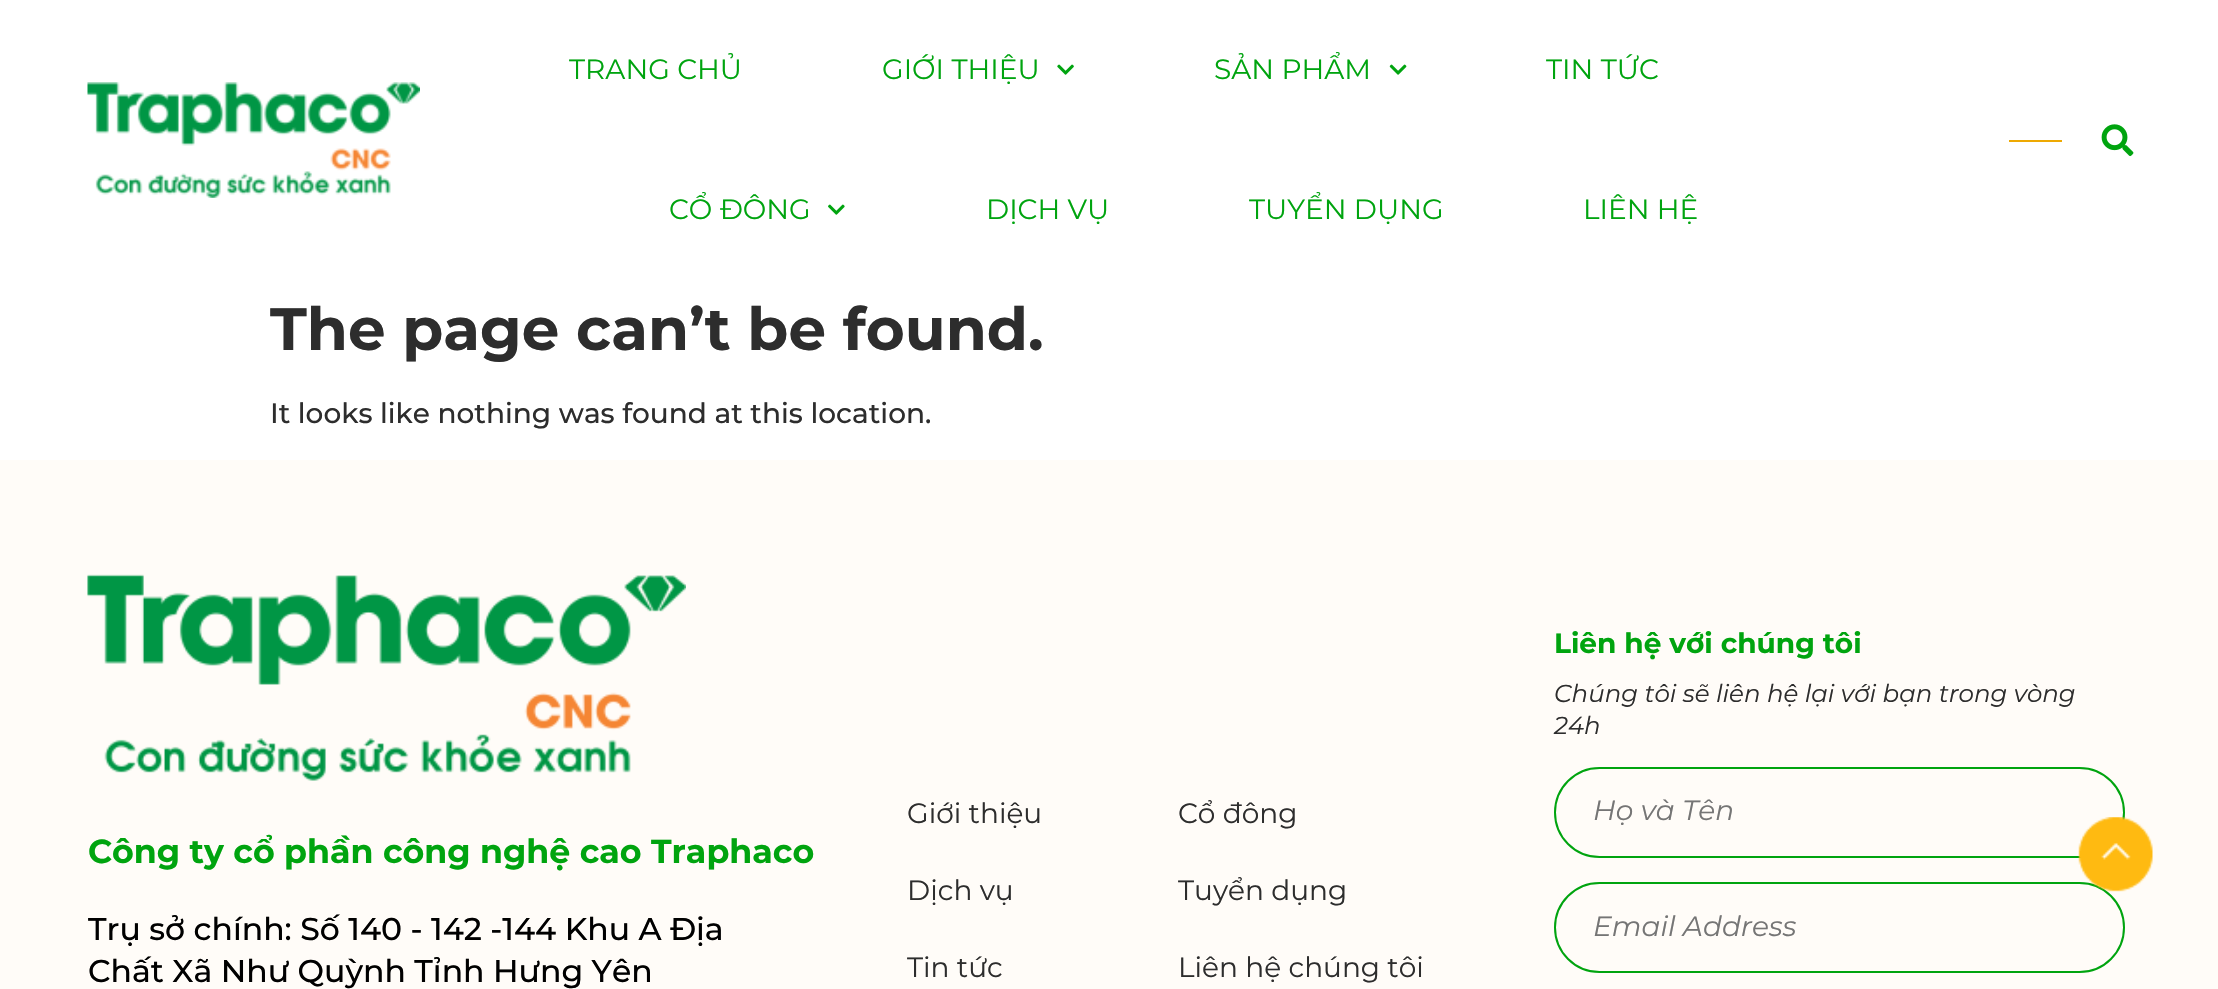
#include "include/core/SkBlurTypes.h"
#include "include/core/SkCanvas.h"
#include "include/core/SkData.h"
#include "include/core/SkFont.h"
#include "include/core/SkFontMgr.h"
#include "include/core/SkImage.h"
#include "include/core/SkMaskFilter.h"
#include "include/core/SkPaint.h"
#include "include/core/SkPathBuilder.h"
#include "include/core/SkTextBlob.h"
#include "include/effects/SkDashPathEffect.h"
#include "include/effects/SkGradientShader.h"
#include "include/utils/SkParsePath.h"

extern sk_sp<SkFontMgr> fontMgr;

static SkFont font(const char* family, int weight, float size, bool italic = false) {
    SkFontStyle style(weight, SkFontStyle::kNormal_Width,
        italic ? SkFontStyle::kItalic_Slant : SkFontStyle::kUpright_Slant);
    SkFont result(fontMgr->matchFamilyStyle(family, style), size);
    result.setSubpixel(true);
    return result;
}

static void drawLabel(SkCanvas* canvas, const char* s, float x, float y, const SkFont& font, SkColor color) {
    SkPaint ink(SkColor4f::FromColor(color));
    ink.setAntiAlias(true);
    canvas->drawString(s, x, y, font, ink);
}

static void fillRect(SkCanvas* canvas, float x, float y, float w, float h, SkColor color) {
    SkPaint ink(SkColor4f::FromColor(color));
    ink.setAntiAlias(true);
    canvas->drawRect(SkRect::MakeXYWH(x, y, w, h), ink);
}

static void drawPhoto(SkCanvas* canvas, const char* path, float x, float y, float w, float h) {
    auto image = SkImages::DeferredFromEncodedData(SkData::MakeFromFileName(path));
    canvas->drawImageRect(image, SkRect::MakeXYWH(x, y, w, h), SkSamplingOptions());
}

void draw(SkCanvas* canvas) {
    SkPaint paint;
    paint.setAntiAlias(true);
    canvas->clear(0xFFFFFFFF);
    drawPhoto(canvas, "assets/img1.png", 87, 82, 333, 116);
    SkFont font1 = font("Montserrat", 400, 28);
    drawLabel(canvas, "TRANG CHỦ", 569, 79, font1, 0xFF00A40F);
    drawLabel(canvas, "GIỚI THIỆU", 882, 79, font1, 0xFF00A40F);
    drawPhoto(canvas, "assets/img2.png", 1057, 64, 17, 11);
    drawLabel(canvas, "SẢN PHẨM", 1214, 79, font1, 0xFF00A40F);
    drawPhoto(canvas, "assets/img3.png", 1389, 64, 18, 11);
    drawLabel(canvas, "TIN TỨC", 1546, 79, font1, 0xFF00A40F);
    drawLabel(canvas, "CỔ ĐÔNG", 669, 219, font1, 0xFF00A40F);
    drawPhoto(canvas, "assets/img4.png", 828, 204, 17, 11);
    drawLabel(canvas, "DỊCH VỤ", 986, 219, font1, 0xFF00A40F);
    drawLabel(canvas, "TUYỂN DỤNG", 1249, 219, font1, 0xFF00A40F);
    drawLabel(canvas, "LIÊN HỆ", 1583, 219, font1, 0xFF00A40F);
    fillRect(canvas, 2009, 140, 53, 2, 0xFFEEA902);
    drawPhoto(canvas, "assets/img5.png", 2101, 124, 33, 33);
    SkFont font2 = font("Montserrat", 700, 59.5f);
    drawLabel(canvas, "The page can’t be found.", 270, 350, font2, 0xFF2D2D2D);
    SkFont font3 = font("Montserrat", 500, 28);
    drawLabel(canvas, "It looks like nothing was found at this location.", 270, 423, font3, 0xFF2D2D2D);
    fillRect(canvas, 0, 460, 2218, 529, 0xFFFFFCF8);
    drawPhoto(canvas, "assets/img6.png", 87, 574, 599, 207);
    SkFont font4 = font("Montserrat", 700, 33.25f);
    drawLabel(canvas, "Công ty cổ phần công nghệ cao Traphaco", 88, 863, font4, 0xFF00A40F);
    SkFont font5 = font("Montserrat", 500, 31.5f);
    drawLabel(canvas, "Trụ sở chính: Số 140 - 142 -144 Khu A Địa", 88, 940, font5, 0xFF000000);
    drawLabel(canvas, "Chất Xã Như Quỳnh Tỉnh Hưng Yên", 88, 982, font5, 0xFF000000);
    drawLabel(canvas, "Giới thiệu", 907, 823, font1, 0xFF2D2D2D);
    drawLabel(canvas, "Dịch vụ", 907, 900, font1, 0xFF2D2D2D);
    drawLabel(canvas, "Tin tức", 907, 977, font1, 0xFF2D2D2D);
    drawLabel(canvas, "Cổ đông", 1178, 823, font1, 0xFF2D2D2D);
    drawLabel(canvas, "Tuyển dụng", 1178, 900, font1, 0xFF2D2D2D);
    drawLabel(canvas, "Liên hệ chúng tôi", 1178, 977, font1, 0xFF2D2D2D);
    SkFont font6 = font("Montserrat", 700, 28);
    drawLabel(canvas, "Liên hệ với chúng tôi", 1554, 653, font6, 0xFF00A40F);
    SkFont font7 = font("Montserrat", 400, 24.5f, true);
    drawLabel(canvas, "Chúng tôi sẽ liên hệ lại với bạn trong vòng", 1554, 702, font7, 0xFF2D2D2D);
    drawLabel(canvas, "24h", 1554, 734, font7, 0xFF2D2D2D);
    paint.setStroke(true);
    paint.setStrokeWidth(2);
    paint.setColor(0xFF00A40F);
    canvas->drawRoundRect(SkRect::MakeXYWH(1555, 768, 569, 89), 44.5f, 44.5f, paint);
    SkFont font8 = font("Montserrat", 400, 28, true);
    drawLabel(canvas, "Họ và Tên", 1593, 820, font8, 0xFF757575);
    canvas->drawRoundRect(SkRect::MakeXYWH(1555, 883, 569, 89), 44.5f, 44.5f, paint);
    drawLabel(canvas, "Email Address", 1593, 936, font8, 0xFF757575);
    drawPhoto(canvas, "assets/img7.png", 2078, 817, 75, 75);
}
